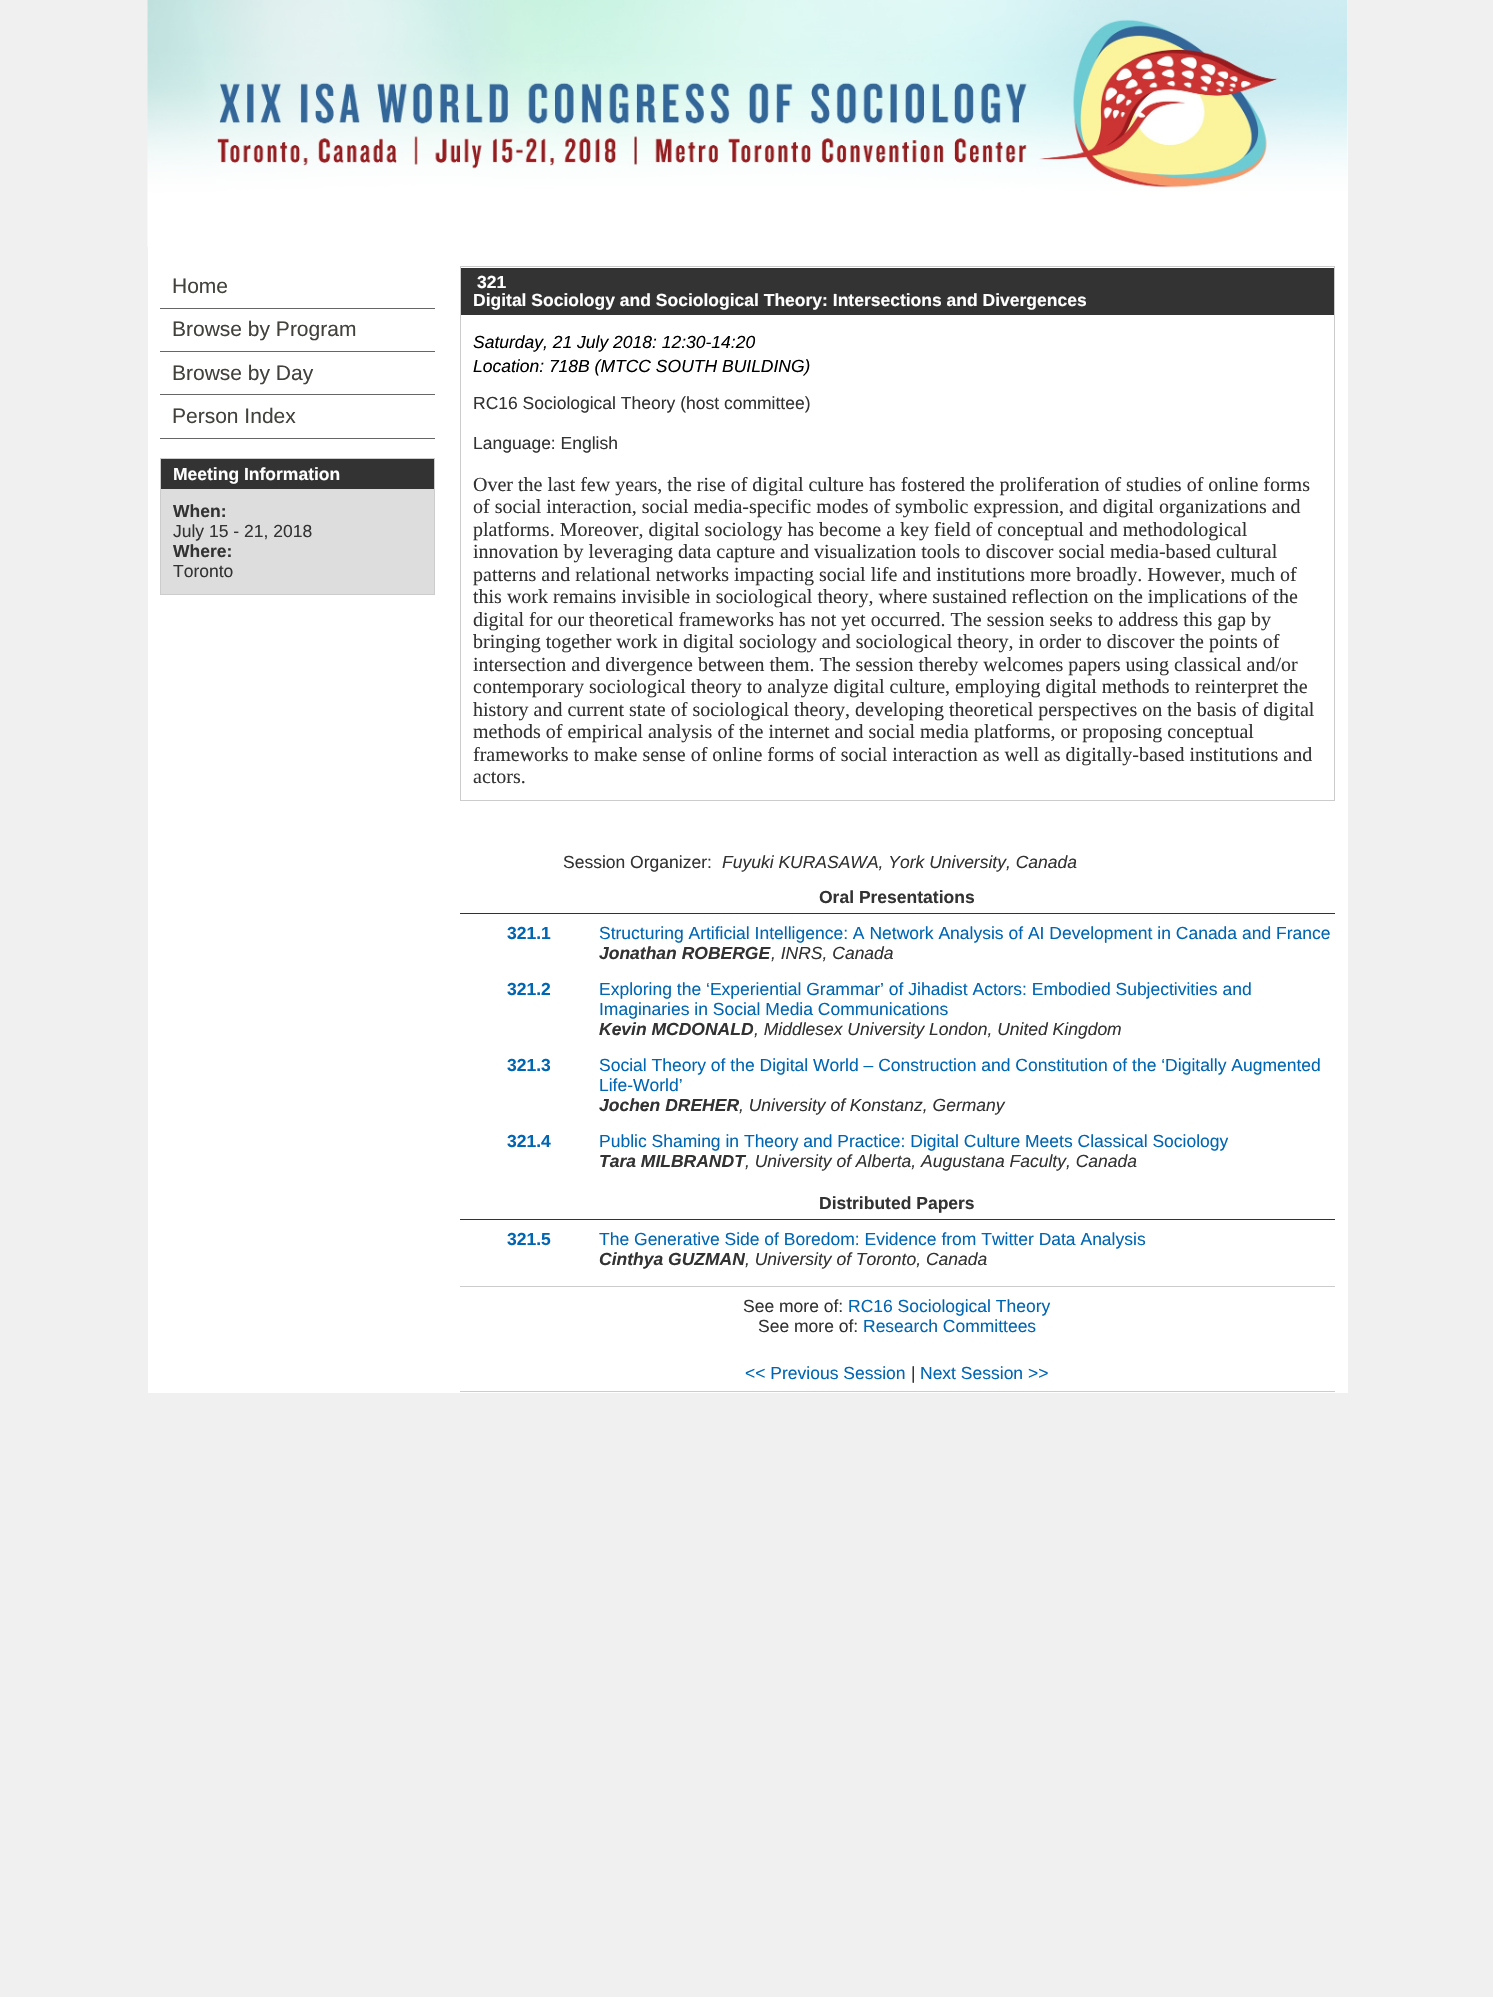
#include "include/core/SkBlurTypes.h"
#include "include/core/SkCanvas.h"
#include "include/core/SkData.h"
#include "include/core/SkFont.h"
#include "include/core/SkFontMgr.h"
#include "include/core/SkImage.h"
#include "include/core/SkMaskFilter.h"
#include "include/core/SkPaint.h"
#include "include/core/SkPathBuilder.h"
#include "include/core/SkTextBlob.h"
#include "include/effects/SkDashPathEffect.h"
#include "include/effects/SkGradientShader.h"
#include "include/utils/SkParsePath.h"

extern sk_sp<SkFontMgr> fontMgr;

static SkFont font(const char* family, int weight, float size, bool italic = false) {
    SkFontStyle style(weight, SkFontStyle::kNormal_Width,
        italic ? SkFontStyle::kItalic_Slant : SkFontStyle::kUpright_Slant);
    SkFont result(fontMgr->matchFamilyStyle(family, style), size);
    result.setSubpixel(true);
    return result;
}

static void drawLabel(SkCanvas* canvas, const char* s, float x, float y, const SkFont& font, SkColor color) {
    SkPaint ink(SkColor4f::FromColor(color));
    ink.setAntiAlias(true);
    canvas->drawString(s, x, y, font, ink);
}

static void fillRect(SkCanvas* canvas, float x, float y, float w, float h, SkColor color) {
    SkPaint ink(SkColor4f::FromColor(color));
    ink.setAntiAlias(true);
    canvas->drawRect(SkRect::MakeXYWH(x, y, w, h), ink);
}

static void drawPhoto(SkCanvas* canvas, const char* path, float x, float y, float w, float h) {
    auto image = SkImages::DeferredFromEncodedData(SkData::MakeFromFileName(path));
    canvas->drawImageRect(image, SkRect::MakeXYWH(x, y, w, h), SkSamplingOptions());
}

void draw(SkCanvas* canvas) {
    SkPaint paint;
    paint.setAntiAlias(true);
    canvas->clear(0xFFF0F0F0);
    fillRect(canvas, 148, 0, 1200, 1393, 0xFFFFFFFF);
    drawPhoto(canvas, "assets/img1.png", 147, 0, 1201, 247);
    fillRect(canvas, 160, 308, 275, 1, 0xFF666666);
    SkFont font1 = font("Liberation Sans", 400, 21);
    drawLabel(canvas, "Home", 172, 293, font1, 0xFF42413C);
    fillRect(canvas, 160, 351, 275, 1, 0xFF666666);
    drawLabel(canvas, "Browse by Program", 172, 336, font1, 0xFF42413C);
    fillRect(canvas, 160, 394, 275, 1, 0xFF666666);
    drawLabel(canvas, "Browse by Day", 172, 380, font1, 0xFF42413C);
    fillRect(canvas, 160, 438, 275, 1, 0xFF666666);
    drawLabel(canvas, "Person Index", 172, 423, font1, 0xFF42413C);
    fillRect(canvas, 161, 489, 273, 105, 0xFFDDDDDD);
    paint.setStroke(true);
    paint.setStrokeWidth(1);
    paint.setColor(0xFFCCCCCC);
    canvas->drawRect(SkRect::MakeXYWH(160.5f, 458.5f, 274, 136), paint);
    fillRect(canvas, 161, 459, 273, 30, 0xFF333333);
    SkFont font2 = font("Liberation Sans", 700, 17.5f);
    drawLabel(canvas, "Meeting Information", 173, 480, font2, 0xFFFFFFFF);
    drawLabel(canvas, "When:", 173, 517, font2, 0xFF333333);
    SkFont font3 = font("Liberation Sans", 400, 17.5f);
    drawLabel(canvas, "July 15 - 21, 2018", 173, 537, font3, 0xFF333333);
    drawLabel(canvas, "Where:", 173, 557, font2, 0xFF333333);
    drawLabel(canvas, "Toronto", 173, 577, font3, 0xFF333333);
    canvas->drawRect(SkRect::MakeXYWH(460.5f, 266.5f, 874, 534), paint);
    fillRect(canvas, 461, 268, 873, 47, 0xFF333333);
    drawLabel(canvas, "321", 477, 288, font2, 0xFFFFFFFF);
    drawLabel(canvas, "Digital Sociology and Sociological Theory: Intersections and Divergences", 473, 306, font2, 0xFFFFFFFF);
    SkFont font4 = font("Liberation Sans", 400, 17.5f, true);
    drawLabel(canvas, "Saturday, 21 July 2018: 12:30-14:20", 473, 348, font4, 0xFF000000);
    drawLabel(canvas, "Location: 718B (MTCC SOUTH BUILDING)", 473, 372, font4, 0xFF000000);
    drawLabel(canvas, "RC16 Sociological Theory (host committee)", 473, 409, font3, 0xFF333333);
    drawLabel(canvas, "Language: English", 473, 449, font3, 0xFF333333);
    SkFont font5 = font("Liberation Serif", 400, 20);
    drawLabel(canvas, "Over the last few years, the rise of digital culture has fostered the proliferation of studies of online forms", 473, 491, font5, 0xFF333333);
    drawLabel(canvas, "of social interaction, social media-specific modes of symbolic expression, and digital organizations and", 473, 513, font5, 0xFF333333);
    drawLabel(canvas, "platforms. Moreover, digital sociology has become a key field of conceptual and methodological", 473, 536, font5, 0xFF333333);
    drawLabel(canvas, "innovation by leveraging data capture and visualization tools to discover social media-based cultural", 473, 558, font5, 0xFF333333);
    drawLabel(canvas, "patterns and relational networks impacting social life and institutions more broadly. However, much of", 473, 581, font5, 0xFF333333);
    drawLabel(canvas, "this work remains invisible in sociological theory, where sustained reflection on the implications of the", 473, 603, font5, 0xFF333333);
    drawLabel(canvas, "digital for our theoretical frameworks has not yet occurred. The session seeks to address this gap by", 473, 626, font5, 0xFF333333);
    drawLabel(canvas, "bringing together work in digital sociology and sociological theory, in order to discover the points of", 473, 648, font5, 0xFF333333);
    drawLabel(canvas, "intersection and divergence between them. The session thereby welcomes papers using classical and/or", 473, 671, font5, 0xFF333333);
    drawLabel(canvas, "contemporary sociological theory to analyze digital culture, employing digital methods to reinterpret the", 473, 693, font5, 0xFF333333);
    drawLabel(canvas, "history and current state of sociological theory, developing theoretical perspectives on the basis of digital", 473, 716, font5, 0xFF333333);
    drawLabel(canvas, "methods of empirical analysis of the internet and social media platforms, or proposing conceptual", 473, 738, font5, 0xFF333333);
    drawLabel(canvas, "frameworks to make sense of online forms of social interaction as well as digitally-based institutions and", 473, 761, font5, 0xFF333333);
    drawLabel(canvas, "actors.", 473, 783, font5, 0xFF333333);
    drawLabel(canvas, "Session Organizer:", 563, 868, font3, 0xFF333333);
    drawLabel(canvas, "Fuyuki KURASAWA, York University, Canada", 722, 868, font4, 0xFF333333);
    fillRect(canvas, 460, 913, 875, 1, 0xFF333333);
    drawLabel(canvas, "Oral Presentations", 819, 903, font2, 0xFF333333);
    drawLabel(canvas, "321.1", 507, 939, font2, 0xFF0066B3);
    drawLabel(canvas, "Structuring Artificial Intelligence: A Network Analysis of AI Development in Canada and France", 599, 939, font3, 0xFF0066B3);
    SkFont font6 = font("Liberation Sans", 700, 17.5f, true);
    drawLabel(canvas, "Jonathan ROBERGE", 599, 959, font6, 0xFF333333);
    drawLabel(canvas, ", INRS, Canada", 771, 959, font4, 0xFF333333);
    drawLabel(canvas, "321.2", 507, 995, font2, 0xFF0066B3);
    drawLabel(canvas, "Exploring the ‘Experiential Grammar’ of Jihadist Actors: Embodied Subjectivities and", 599, 995, font3, 0xFF0066B3);
    drawLabel(canvas, "Imaginaries in Social Media Communications", 599, 1015, font3, 0xFF0066B3);
    drawLabel(canvas, "Kevin MCDONALD", 599, 1035, font6, 0xFF333333);
    drawLabel(canvas, ", Middlesex University London, United Kingdom", 754, 1035, font4, 0xFF333333);
    drawLabel(canvas, "321.3", 507, 1071, font2, 0xFF0066B3);
    drawLabel(canvas, "Social Theory of the Digital World – Construction and Constitution of the ‘Digitally Augmented", 599, 1071, font3, 0xFF0066B3);
    drawLabel(canvas, "Life-World’", 599, 1091, font3, 0xFF0066B3);
    drawLabel(canvas, "Jochen DREHER", 599, 1111, font6, 0xFF333333);
    drawLabel(canvas, ", University of Konstanz, Germany", 739, 1111, font4, 0xFF333333);
    drawLabel(canvas, "321.4", 507, 1147, font2, 0xFF0066B3);
    drawLabel(canvas, "Public Shaming in Theory and Practice: Digital Culture Meets Classical Sociology", 599, 1147, font3, 0xFF0066B3);
    drawLabel(canvas, "Tara MILBRANDT", 599, 1167, font6, 0xFF333333);
    drawLabel(canvas, ", University of Alberta, Augustana Faculty, Canada", 745, 1167, font4, 0xFF333333);
    fillRect(canvas, 460, 1219, 875, 1, 0xFF333333);
    drawLabel(canvas, "Distributed Papers", 819, 1209, font2, 0xFF333333);
    drawLabel(canvas, "321.5", 507, 1245, font2, 0xFF0066B3);
    drawLabel(canvas, "The Generative Side of Boredom: Evidence from Twitter Data Analysis", 599, 1245, font3, 0xFF0066B3);
    drawLabel(canvas, "Cinthya GUZMAN", 599, 1265, font6, 0xFF333333);
    drawLabel(canvas, ", University of Toronto, Canada", 745, 1265, font4, 0xFF333333);
    fillRect(canvas, 460, 1286, 875, 1, 0xFFCCCCCC);
    drawLabel(canvas, "See more of:", 743, 1312, font3, 0xFF333333);
    drawLabel(canvas, "RC16 Sociological Theory", 848, 1312, font3, 0xFF0066B3);
    drawLabel(canvas, "See more of:", 758, 1332, font3, 0xFF333333);
    drawLabel(canvas, "Research Committees", 863, 1332, font3, 0xFF0066B3);
    fillRect(canvas, 460, 1391, 875, 1, 0xFFCCCCCC);
    drawLabel(canvas, "<< Previous Session", 745, 1379, font3, 0xFF0066B3);
    drawLabel(canvas, "|", 911, 1379, font3, 0xFF333333);
    drawLabel(canvas, "Next Session >>", 920, 1379, font3, 0xFF0066B3);
}
